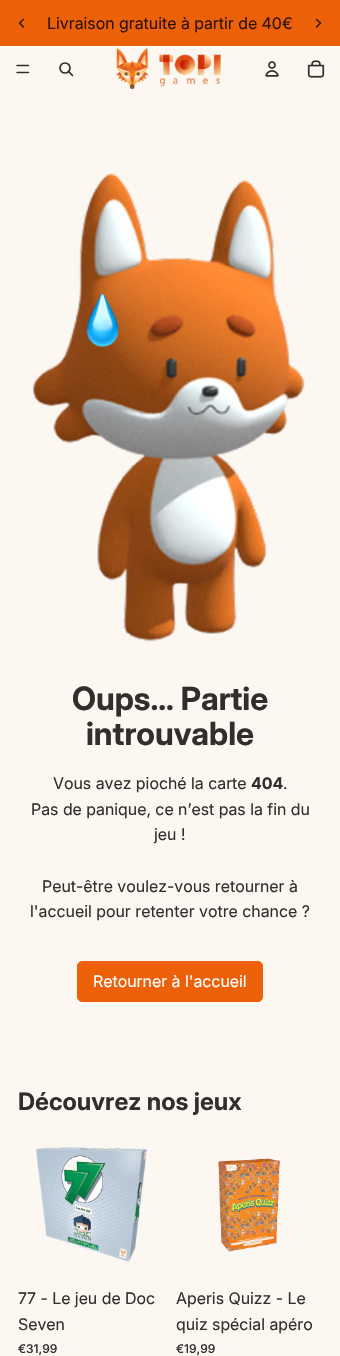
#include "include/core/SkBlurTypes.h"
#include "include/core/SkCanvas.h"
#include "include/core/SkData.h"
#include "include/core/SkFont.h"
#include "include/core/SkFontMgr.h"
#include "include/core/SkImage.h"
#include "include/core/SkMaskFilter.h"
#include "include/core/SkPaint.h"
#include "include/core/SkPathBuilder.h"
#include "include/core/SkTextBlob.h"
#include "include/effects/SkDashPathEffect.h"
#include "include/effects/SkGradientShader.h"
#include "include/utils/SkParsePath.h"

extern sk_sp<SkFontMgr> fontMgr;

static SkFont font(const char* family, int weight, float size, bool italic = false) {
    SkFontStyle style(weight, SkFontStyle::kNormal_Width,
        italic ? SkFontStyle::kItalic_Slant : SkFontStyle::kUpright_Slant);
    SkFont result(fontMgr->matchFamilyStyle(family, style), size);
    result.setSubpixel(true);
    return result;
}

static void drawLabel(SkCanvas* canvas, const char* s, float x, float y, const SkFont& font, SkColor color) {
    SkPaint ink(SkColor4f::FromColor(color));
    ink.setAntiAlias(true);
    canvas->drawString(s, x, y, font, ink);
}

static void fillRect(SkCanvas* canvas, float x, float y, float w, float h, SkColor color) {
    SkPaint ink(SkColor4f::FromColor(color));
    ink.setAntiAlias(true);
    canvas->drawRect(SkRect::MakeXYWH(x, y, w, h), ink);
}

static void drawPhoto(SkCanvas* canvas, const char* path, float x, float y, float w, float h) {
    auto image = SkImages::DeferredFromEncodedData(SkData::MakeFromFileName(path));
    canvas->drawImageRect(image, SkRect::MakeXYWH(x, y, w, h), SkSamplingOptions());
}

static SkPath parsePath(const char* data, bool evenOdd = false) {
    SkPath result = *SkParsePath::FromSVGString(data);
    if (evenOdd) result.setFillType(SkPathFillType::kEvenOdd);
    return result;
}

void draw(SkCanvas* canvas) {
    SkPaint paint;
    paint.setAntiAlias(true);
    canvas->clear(0xFFFCF7F1);
    fillRect(canvas, 0, 0, 340, 46, 0xFFEC6108);
    SkFont font1 = font("Inter", 400, 16);
    drawLabel(canvas, "Livraison gratuite à partir de 40€", 47, 29, font1, 0xFF2D1202);
    paint.setStroke(true);
    paint.setStrokeWidth(1.5f);
    paint.setStrokeCap(SkPaint::kRound_Cap);
    paint.setStrokeJoin(SkPaint::kRound_Join);
    paint.setColor(0xFF2D1202);
    canvas->drawPath(parsePath("M23.5 19.5L19.5 23L23.5 27"), paint);
    canvas->drawPath(parsePath("M316.5 19.5L320.5 23L316.5 27"), paint);
    paint.setStrokeJoin(SkPaint::kMiter_Join);
    paint.setColor(0xFF302F2E);
    canvas->drawPath(parsePath("M17 65.5H28.5M17 72.5H28.5"), paint);
    paint.setStrokeWidth(1.7f);
    paint.setStrokeCap(SkPaint::kButt_Cap);
    canvas->drawCircle(65, 68, 5, paint);
    paint.setStrokeCap(SkPaint::kRound_Cap);
    paint.setStrokeJoin(SkPaint::kRound_Join);
    paint.setColor(0xCF000000);
    canvas->drawPath(parsePath("M69 72L72.5 75.5"), paint);
    drawPhoto(canvas, "assets/img1.png", 116, 47, 105, 42);
    drawPhoto(canvas, "assets/img2.png", 265, 61, 14, 16);
    drawPhoto(canvas, "assets/img3.png", 307, 60, 18, 18);
    drawPhoto(canvas, "assets/img4.png", 32, 173, 273, 469);
    SkFont font2 = font("Inter", 700, 32);
    drawLabel(canvas, "Oups... Partie", 72, 710, font2, 0xFF302F2E);
    drawLabel(canvas, "introuvable", 86, 745, font2, 0xFF302F2E);
    drawLabel(canvas, "Vous avez pioché la carte", 53, 789, font1, 0xFF302F2E);
    SkFont font3 = font("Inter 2", 700, 16);
    drawLabel(canvas, "404", 251, 789, font3, 0xFF302F2E);
    drawLabel(canvas, ".", 283, 789, font1, 0xFF302F2E);
    drawLabel(canvas, "Pas de panique, ce n’est pas la fin du", 31, 815, font1, 0xFF302F2E);
    drawLabel(canvas, "jeu !", 154, 840, font1, 0xFF302F2E);
    drawLabel(canvas, "Peut-être voulez-vous retourner à", 42, 892, font1, 0xFF302F2E);
    drawLabel(canvas, "l'accueil pour retenter votre chance ?", 30, 917, font1, 0xFF302F2E);
    paint.setStroke(false);
    paint.setColor(0xFFEC6108);
    canvas->drawRoundRect(SkRect::MakeXYWH(77.5f, 961.5f, 185, 40), 4.5f, 4.5f, paint);
    paint.setStroke(true);
    paint.setStrokeWidth(1);
    paint.setStrokeCap(SkPaint::kButt_Cap);
    paint.setStrokeJoin(SkPaint::kMiter_Join);
    canvas->drawRoundRect(SkRect::MakeXYWH(77.5f, 961.5f, 185, 40), 4.5f, 4.5f, paint);
    drawLabel(canvas, "Retourner à l'accueil", 93, 987, font1, 0xFFFFFFFF);
    SkFont font4 = font("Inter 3", 700, 24);
    drawLabel(canvas, "Découvrez nos jeux", 18, 1110, font4, 0xFF302F2E);
    drawPhoto(canvas, "assets/img5.png", 36, 1147, 111, 115);
    drawLabel(canvas, "77 - Le jeu de Doc", 18, 1304, font1, 0xFF302F2E);
    drawLabel(canvas, "Seven", 18, 1330, font1, 0xFF302F2E);
    SkFont font5 = font("Inter", 500, 12);
    drawLabel(canvas, "€31,99", 18, 1353, font5, 0xFF302F2E);
    drawPhoto(canvas, "assets/img6.png", 218, 1158, 62, 94);
    drawLabel(canvas, "Aperis Quizz - Le", 176, 1304, font1, 0xFF302F2E);
    drawLabel(canvas, "quiz spécial apéro", 176, 1330, font1, 0xFF302F2E);
    drawLabel(canvas, "€19,99", 176, 1353, font5, 0xFF302F2E);
}
